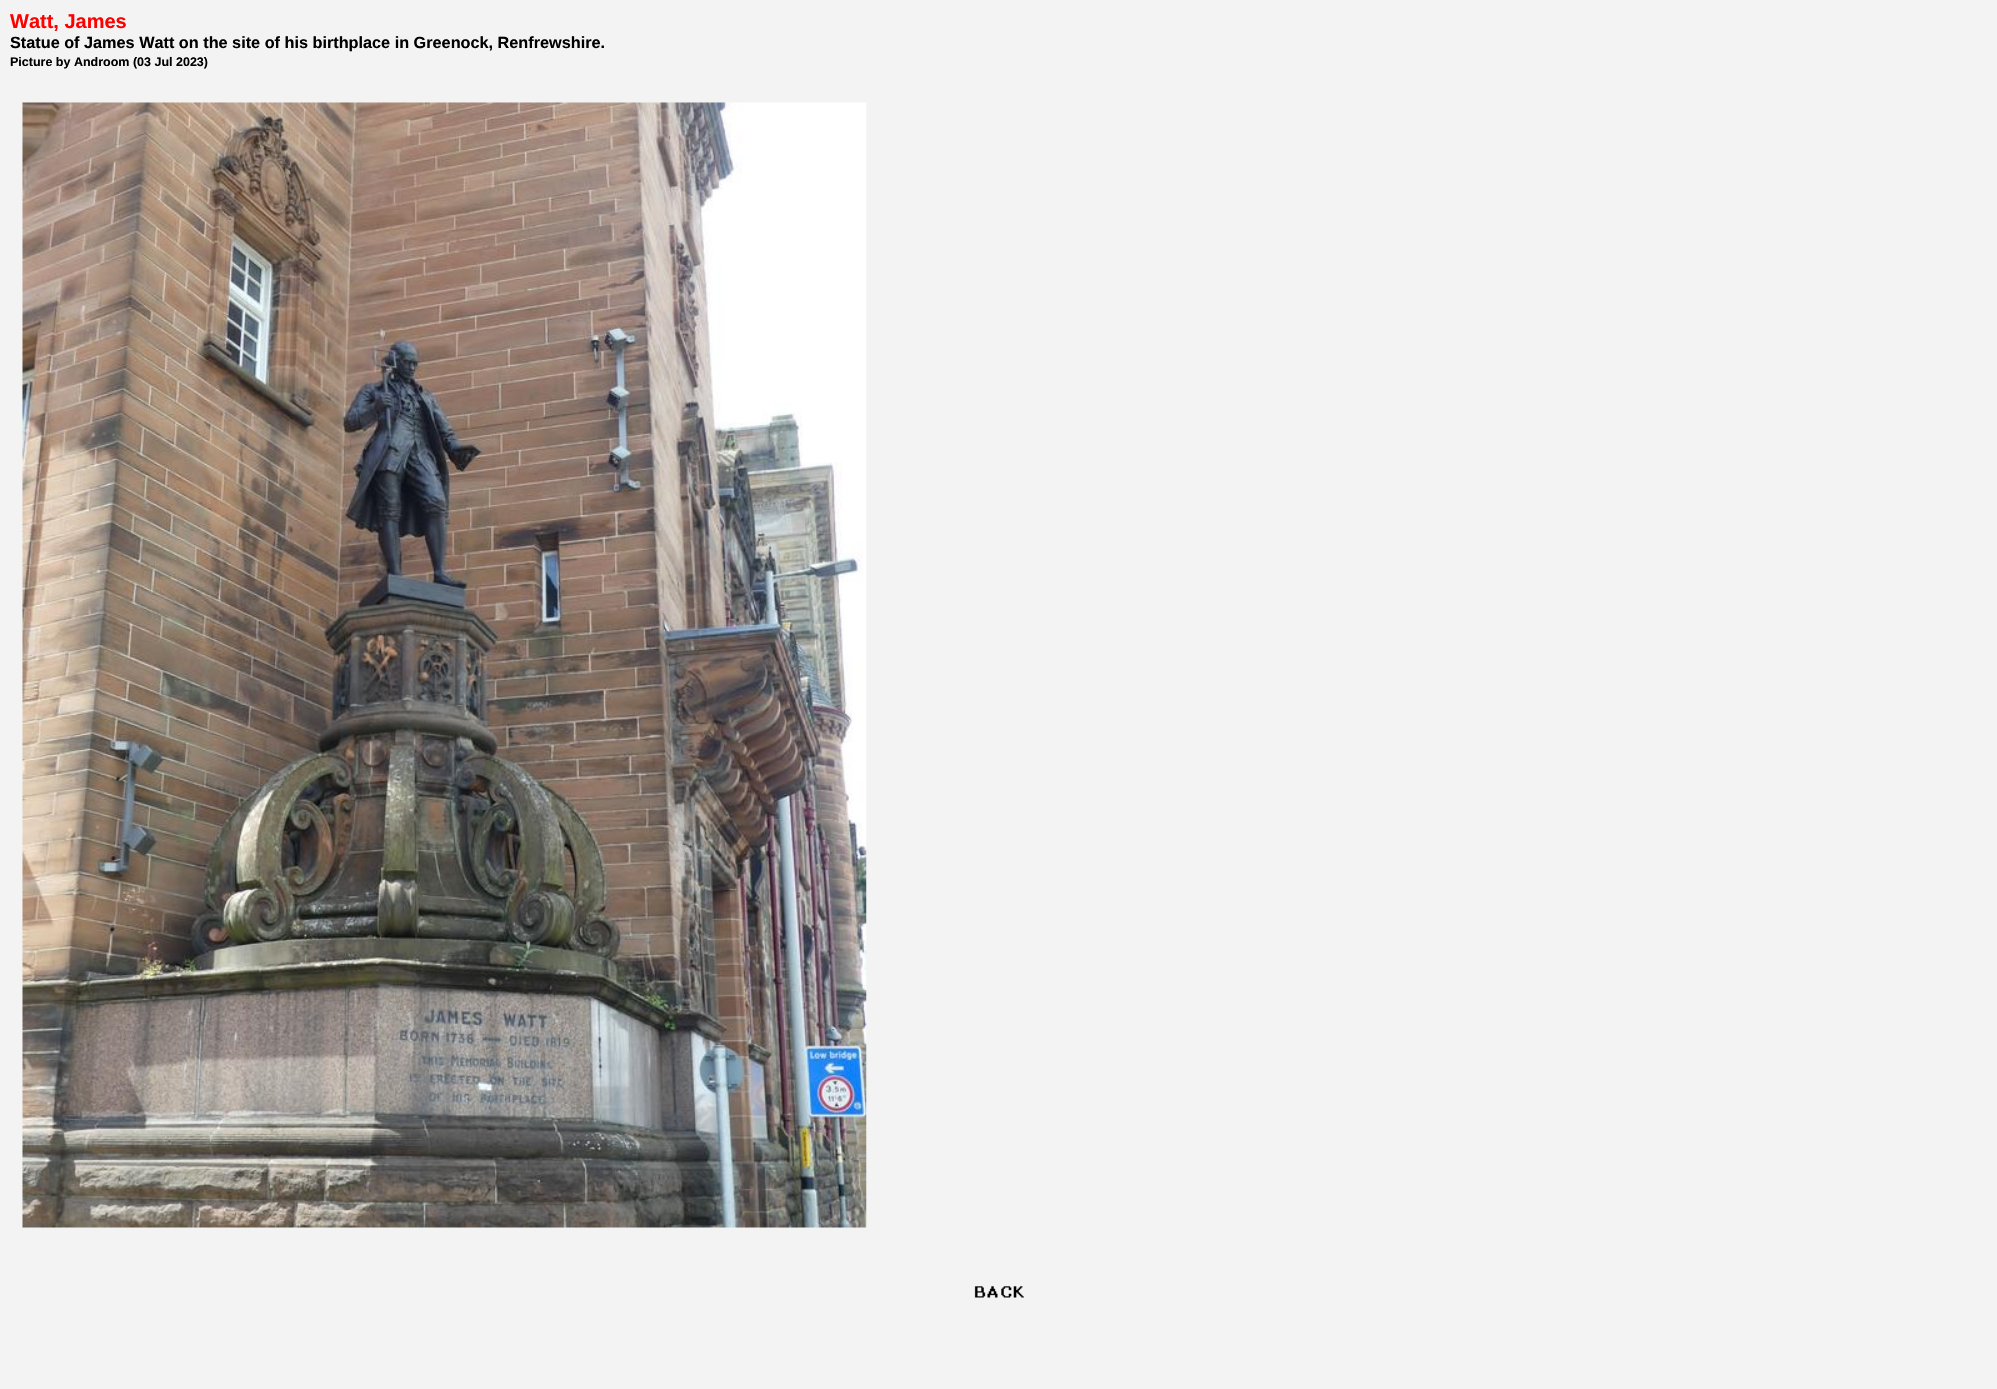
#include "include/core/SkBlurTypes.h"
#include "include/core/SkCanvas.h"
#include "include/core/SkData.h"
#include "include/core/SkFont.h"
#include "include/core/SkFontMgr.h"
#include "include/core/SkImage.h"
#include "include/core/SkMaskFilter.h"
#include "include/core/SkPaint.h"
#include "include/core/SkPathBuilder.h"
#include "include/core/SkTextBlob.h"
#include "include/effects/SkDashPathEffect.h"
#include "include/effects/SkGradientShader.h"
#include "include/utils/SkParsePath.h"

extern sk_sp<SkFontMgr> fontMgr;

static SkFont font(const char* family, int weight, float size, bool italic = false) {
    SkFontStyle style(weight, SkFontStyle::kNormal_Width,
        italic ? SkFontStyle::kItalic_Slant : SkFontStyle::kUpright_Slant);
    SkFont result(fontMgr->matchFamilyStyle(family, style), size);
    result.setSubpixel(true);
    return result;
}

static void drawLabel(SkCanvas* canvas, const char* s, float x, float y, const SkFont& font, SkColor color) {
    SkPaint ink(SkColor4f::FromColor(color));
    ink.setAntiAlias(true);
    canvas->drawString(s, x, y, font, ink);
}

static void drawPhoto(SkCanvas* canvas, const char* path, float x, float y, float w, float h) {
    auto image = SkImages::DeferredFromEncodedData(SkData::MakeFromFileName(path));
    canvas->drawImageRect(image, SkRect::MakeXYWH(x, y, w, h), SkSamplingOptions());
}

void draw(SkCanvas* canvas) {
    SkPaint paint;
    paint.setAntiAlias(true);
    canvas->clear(0xFFF3F3F3);
    SkFont font1 = font("Liberation Sans", 700, 20);
    drawLabel(canvas, "Watt, James", 10, 28, font1, 0xFFFF0000);
    SkFont font2 = font("Liberation Sans", 700, 16.25f);
    drawLabel(canvas, "Statue of James Watt on the site of his birthplace in Greenock, Renfrewshire.", 10, 48, font2, 0xFF000000);
    SkFont font3 = font("Liberation Sans", 700, 12.5f);
    drawLabel(canvas, "Picture by Androom (03 Jul 2023)", 10, 66, font3, 0xFF000000);
    drawPhoto(canvas, "assets/img1.png", 22, 102, 845, 1126);
    drawPhoto(canvas, "assets/img2.png", 974, 1286, 50, 12);
}
